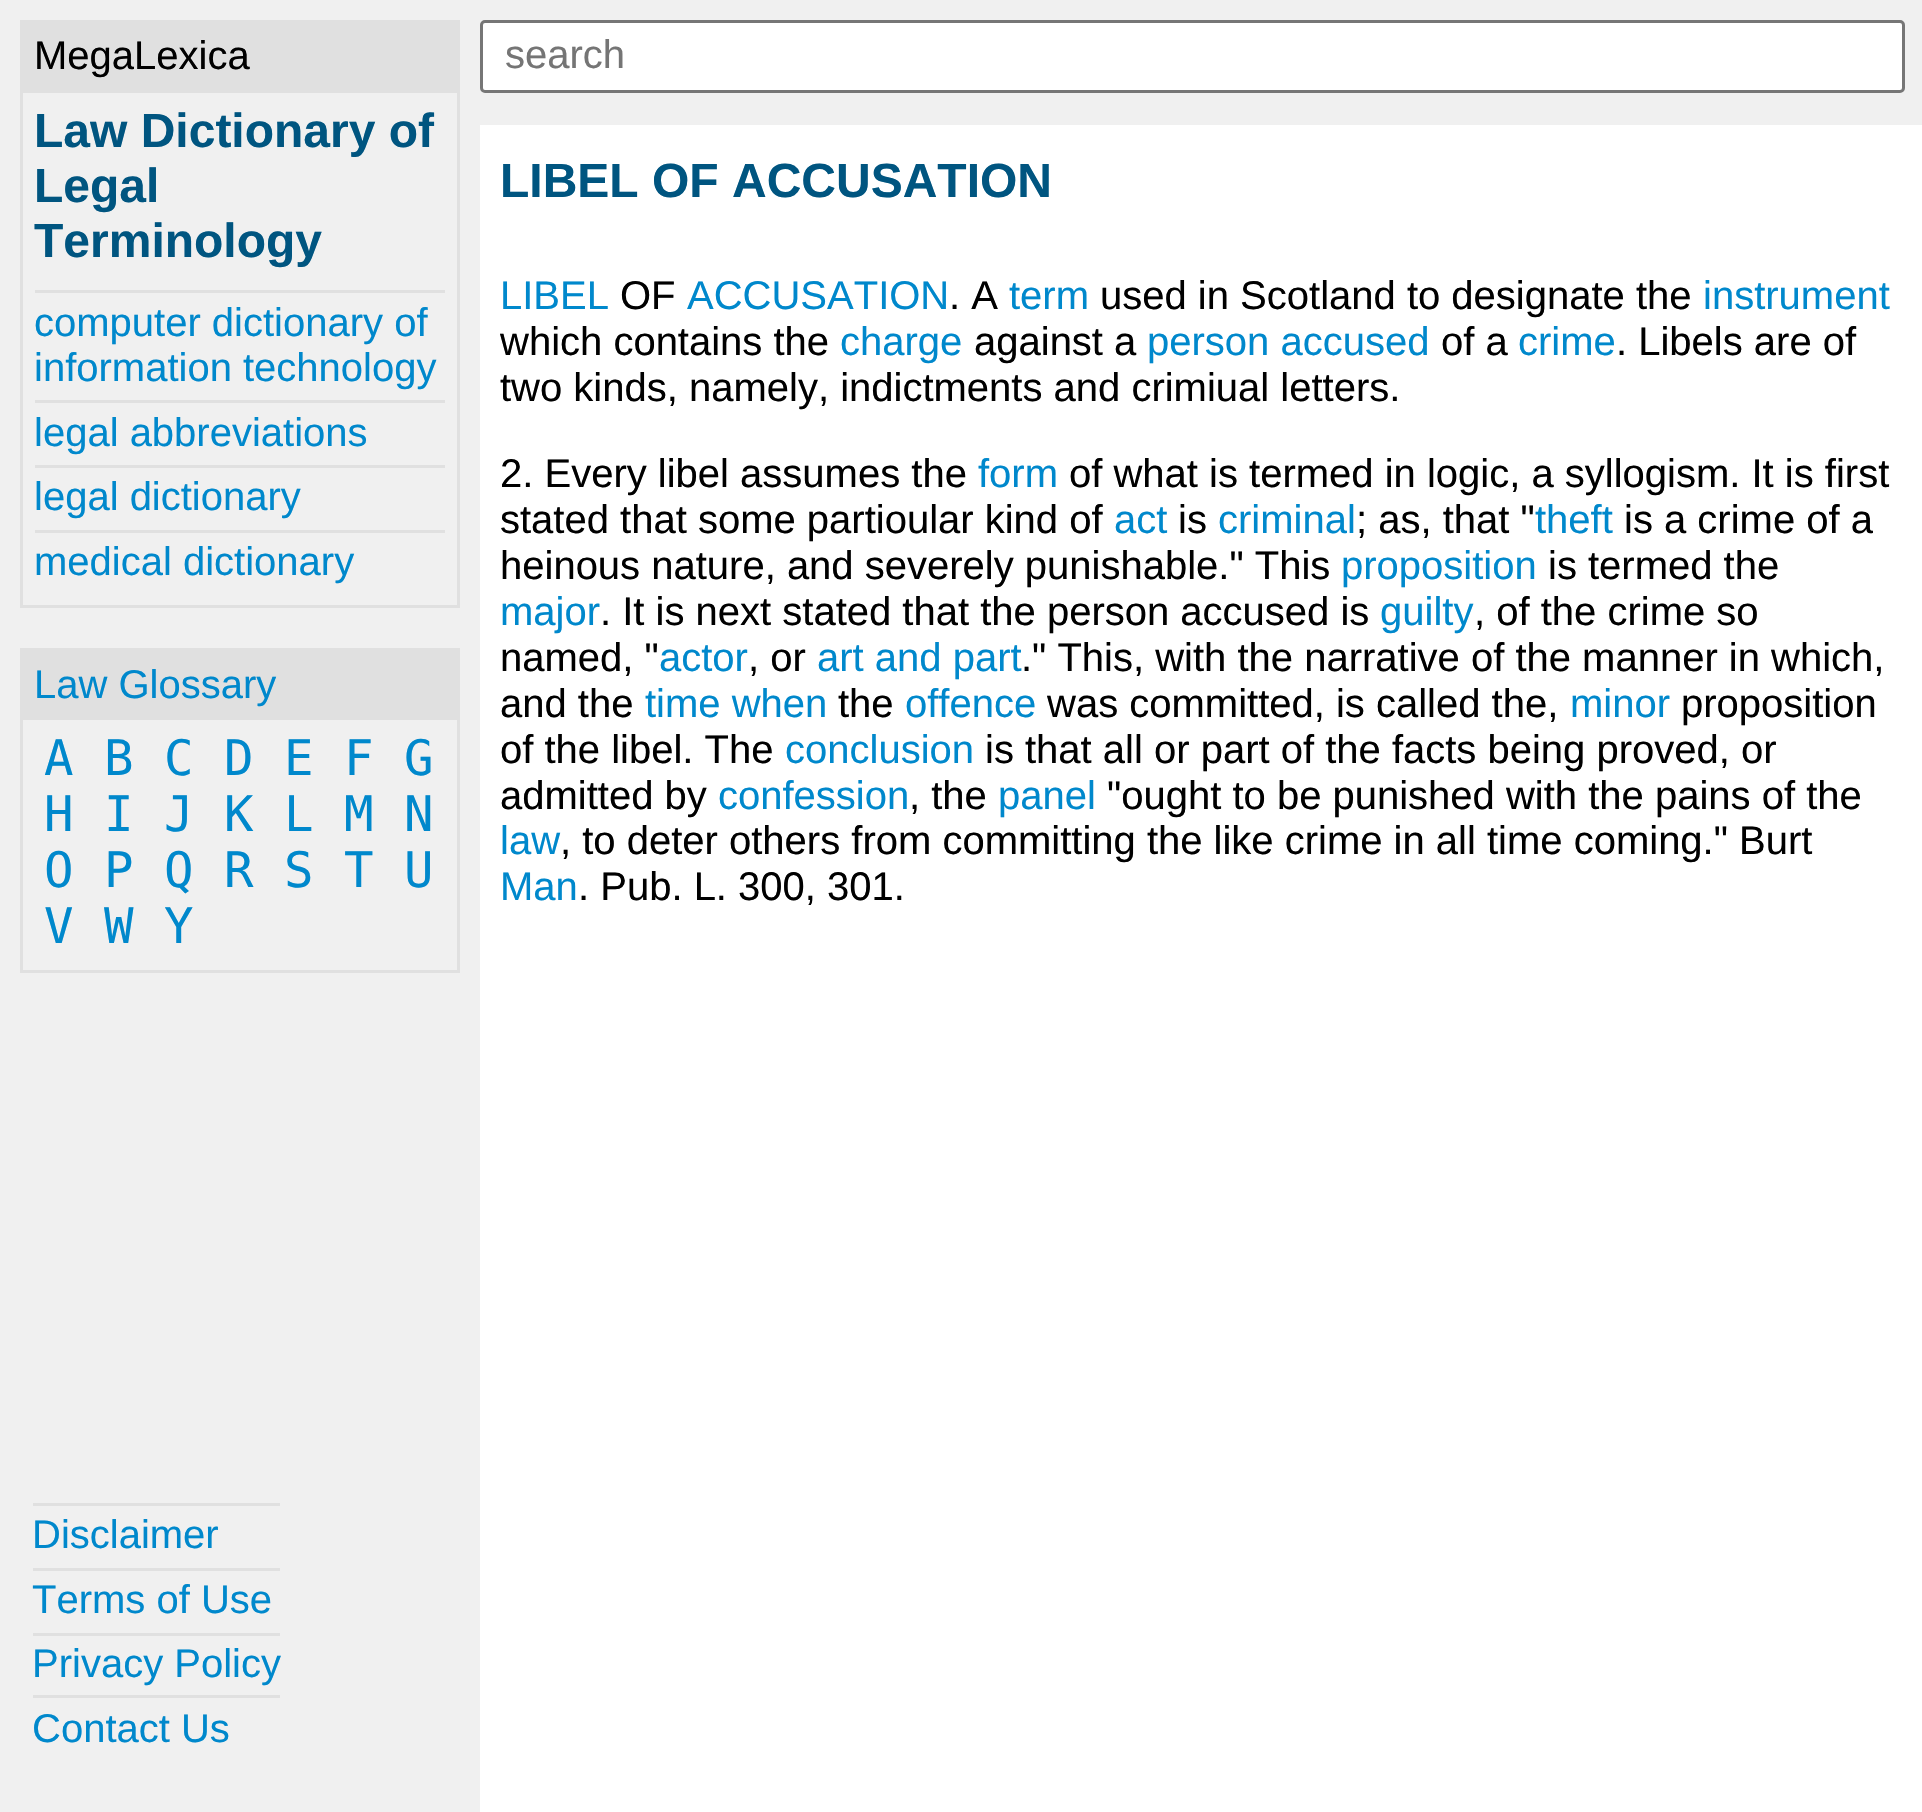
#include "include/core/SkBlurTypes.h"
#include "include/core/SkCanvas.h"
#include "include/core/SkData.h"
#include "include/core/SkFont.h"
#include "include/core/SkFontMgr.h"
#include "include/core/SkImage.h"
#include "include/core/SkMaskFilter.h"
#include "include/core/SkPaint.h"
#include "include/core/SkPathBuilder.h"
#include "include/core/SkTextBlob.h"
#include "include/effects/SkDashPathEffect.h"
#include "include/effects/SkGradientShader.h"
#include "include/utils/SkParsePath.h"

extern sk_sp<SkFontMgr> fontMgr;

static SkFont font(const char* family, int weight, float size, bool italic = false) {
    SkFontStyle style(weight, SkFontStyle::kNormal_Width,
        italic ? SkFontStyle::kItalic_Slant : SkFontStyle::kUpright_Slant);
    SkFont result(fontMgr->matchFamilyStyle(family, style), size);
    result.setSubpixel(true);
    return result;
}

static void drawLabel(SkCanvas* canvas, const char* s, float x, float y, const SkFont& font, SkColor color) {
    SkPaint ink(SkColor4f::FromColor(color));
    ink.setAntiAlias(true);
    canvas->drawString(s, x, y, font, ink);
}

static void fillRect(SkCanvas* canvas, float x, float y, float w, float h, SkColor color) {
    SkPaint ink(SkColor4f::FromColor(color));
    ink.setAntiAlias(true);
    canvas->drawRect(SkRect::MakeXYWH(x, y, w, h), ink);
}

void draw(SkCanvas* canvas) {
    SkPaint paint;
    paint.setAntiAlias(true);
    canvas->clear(0xFFFFFFFF);
    fillRect(canvas, 0, 0, 480, 1812, 0xFFF0F0F0);
    paint.setStroke(true);
    paint.setStrokeWidth(3);
    paint.setColor(0xFFE0E0E0);
    canvas->drawRect(SkRect::MakeXYWH(21.5f, 21.5f, 437, 585), paint);
    fillRect(canvas, 23, 23, 434, 70, 0xFFE0E0E0);
    SkFont font1 = font("Liberation Sans", 400, 40);
    drawLabel(canvas, "MegaLexica", 34, 69, font1, 0xFF000000);
    SkFont font2 = font("Liberation Sans", 700, 48);
    drawLabel(canvas, "Law Dictionary of", 34, 147, font2, 0xFF005580);
    drawLabel(canvas, "Legal", 34, 202, font2, 0xFF005580);
    drawLabel(canvas, "Terminology", 34, 257, font2, 0xFF005580);
    fillRect(canvas, 35, 290, 410, 3, 0xFFE0E0E0);
    drawLabel(canvas, "computer dictionary of", 34, 336, font1, 0xFF0088CC);
    drawLabel(canvas, "information technology", 34, 381, font1, 0xFF0088CC);
    fillRect(canvas, 35, 400, 410, 3, 0xFFE0E0E0);
    drawLabel(canvas, "legal abbreviations", 34, 446, font1, 0xFF0088CC);
    fillRect(canvas, 35, 465, 410, 3, 0xFFE0E0E0);
    drawLabel(canvas, "legal dictionary", 34, 510, font1, 0xFF0088CC);
    fillRect(canvas, 35, 530, 410, 3, 0xFFE0E0E0);
    drawLabel(canvas, "medical dictionary", 34, 575, font1, 0xFF0088CC);
    canvas->drawRect(SkRect::MakeXYWH(21.5f, 649.5f, 437, 322), paint);
    fillRect(canvas, 23, 651, 434, 69, 0xFFE0E0E0);
    drawLabel(canvas, "Law Glossary", 34, 698, font1, 0xFF0088CC);
    SkFont font3 = font("DejaVu Sans Mono", 400, 49);
    drawLabel(canvas, "A", 44, 775, font3, 0xFF0088CC);
    drawLabel(canvas, "B", 104, 775, font3, 0xFF0088CC);
    drawLabel(canvas, "C", 164, 775, font3, 0xFF0088CC);
    drawLabel(canvas, "D", 224, 775, font3, 0xFF0088CC);
    drawLabel(canvas, "E", 284, 775, font3, 0xFF0088CC);
    drawLabel(canvas, "F", 344, 775, font3, 0xFF0088CC);
    drawLabel(canvas, "G", 404, 775, font3, 0xFF0088CC);
    drawLabel(canvas, "H", 44, 831, font3, 0xFF0088CC);
    drawLabel(canvas, "I", 104, 831, font3, 0xFF0088CC);
    drawLabel(canvas, "J", 164, 831, font3, 0xFF0088CC);
    drawLabel(canvas, "K", 224, 831, font3, 0xFF0088CC);
    drawLabel(canvas, "L", 284, 831, font3, 0xFF0088CC);
    drawLabel(canvas, "M", 344, 831, font3, 0xFF0088CC);
    drawLabel(canvas, "N", 404, 831, font3, 0xFF0088CC);
    drawLabel(canvas, "O", 44, 887, font3, 0xFF0088CC);
    drawLabel(canvas, "P", 104, 887, font3, 0xFF0088CC);
    drawLabel(canvas, "Q", 164, 887, font3, 0xFF0088CC);
    drawLabel(canvas, "R", 224, 887, font3, 0xFF0088CC);
    drawLabel(canvas, "S", 284, 887, font3, 0xFF0088CC);
    drawLabel(canvas, "T", 344, 887, font3, 0xFF0088CC);
    drawLabel(canvas, "U", 404, 887, font3, 0xFF0088CC);
    drawLabel(canvas, "V", 44, 943, font3, 0xFF0088CC);
    drawLabel(canvas, "W", 104, 943, font3, 0xFF0088CC);
    drawLabel(canvas, "Y", 164, 943, font3, 0xFF0088CC);
    fillRect(canvas, 33, 1503, 247, 3, 0xFFE0E0E0);
    drawLabel(canvas, "Disclaimer", 32, 1548, font1, 0xFF0088CC);
    fillRect(canvas, 33, 1568, 247, 3, 0xFFE0E0E0);
    drawLabel(canvas, "Terms of Use", 32, 1613, font1, 0xFF0088CC);
    fillRect(canvas, 33, 1633, 247, 3, 0xFFE0E0E0);
    drawLabel(canvas, "Privacy Policy", 32, 1677, font1, 0xFF0088CC);
    fillRect(canvas, 33, 1695, 247, 3, 0xFFE0E0E0);
    drawLabel(canvas, "Contact Us", 32, 1742, font1, 0xFF0088CC);
    fillRect(canvas, 480, 0, 1442, 125, 0xFFF0F0F0);
    paint.setStroke(false);
    paint.setColor(0xFFFFFFFF);
    canvas->drawRoundRect(SkRect::MakeXYWH(481.5f, 21.5f, 1422, 70), 3.5f, 3.5f, paint);
    paint.setStroke(true);
    paint.setColor(0xFF767676);
    canvas->drawRoundRect(SkRect::MakeXYWH(481.5f, 21.5f, 1422, 70), 3.5f, 3.5f, paint);
    drawLabel(canvas, "search", 505, 68, font1, 0xFF757575);
    drawLabel(canvas, "LIBEL OF ACCUSATION", 500, 197, font2, 0xFF005580);
    drawLabel(canvas, "LIBEL", 500, 309, font1, 0xFF0088CC);
    drawLabel(canvas, "OF", 620, 309, font1, 0xFF000000);
    drawLabel(canvas, "ACCUSATION", 687, 309, font1, 0xFF0088CC);
    drawLabel(canvas, ". A", 949, 309, font1, 0xFF000000);
    drawLabel(canvas, "term", 1009, 309, font1, 0xFF0088CC);
    drawLabel(canvas, "used in Scotland to designate the", 1100, 309, font1, 0xFF000000);
    drawLabel(canvas, "instrument", 1703, 309, font1, 0xFF0088CC);
    drawLabel(canvas, "which contains the", 500, 355, font1, 0xFF000000);
    drawLabel(canvas, "charge", 840, 355, font1, 0xFF0088CC);
    drawLabel(canvas, "against a", 974, 355, font1, 0xFF000000);
    drawLabel(canvas, "person accused", 1147, 355, font1, 0xFF0088CC);
    drawLabel(canvas, "of a", 1441, 355, font1, 0xFF000000);
    drawLabel(canvas, "crime", 1518, 355, font1, 0xFF0088CC);
    drawLabel(canvas, ". Libels are of", 1616, 355, font1, 0xFF000000);
    drawLabel(canvas, "two kinds, namely, indictments and crimiual letters.", 500, 401, font1, 0xFF000000);
    drawLabel(canvas, "2. Every libel assumes the", 500, 487, font1, 0xFF000000);
    drawLabel(canvas, "form", 978, 487, font1, 0xFF0088CC);
    drawLabel(canvas, "of what is termed in logic, a syllogism. It is first", 1069, 487, font1, 0xFF000000);
    drawLabel(canvas, "stated that some partioular kind of", 500, 533, font1, 0xFF000000);
    drawLabel(canvas, "act", 1114, 533, font1, 0xFF0088CC);
    drawLabel(canvas, "is", 1178, 533, font1, 0xFF000000);
    drawLabel(canvas, "criminal", 1218, 533, font1, 0xFF0088CC);
    drawLabel(canvas, "; as, that \"", 1356, 533, font1, 0xFF000000);
    drawLabel(canvas, "theft", 1535, 533, font1, 0xFF0088CC);
    drawLabel(canvas, "is a crime of a", 1624, 533, font1, 0xFF000000);
    drawLabel(canvas, "heinous nature, and severely punishable.\" This", 500, 579, font1, 0xFF000000);
    drawLabel(canvas, "proposition", 1341, 579, font1, 0xFF0088CC);
    drawLabel(canvas, "is termed the", 1548, 579, font1, 0xFF000000);
    drawLabel(canvas, "major", 500, 625, font1, 0xFF0088CC);
    drawLabel(canvas, ". It is next stated that the person accused is", 600, 625, font1, 0xFF000000);
    drawLabel(canvas, "guilty", 1380, 625, font1, 0xFF0088CC);
    drawLabel(canvas, ", of the crime so", 1474, 625, font1, 0xFF000000);
    drawLabel(canvas, "named, \"", 500, 671, font1, 0xFF000000);
    drawLabel(canvas, "actor", 659, 671, font1, 0xFF0088CC);
    drawLabel(canvas, ", or", 748, 671, font1, 0xFF000000);
    drawLabel(canvas, "art and part", 817, 671, font1, 0xFF0088CC);
    drawLabel(canvas, ".\" This, with the narrative of the manner in which,", 1021, 671, font1, 0xFF000000);
    drawLabel(canvas, "and the", 500, 717, font1, 0xFF000000);
    drawLabel(canvas, "time when", 645, 717, font1, 0xFF0088CC);
    drawLabel(canvas, "the", 838, 717, font1, 0xFF000000);
    drawLabel(canvas, "offence", 905, 717, font1, 0xFF0088CC);
    drawLabel(canvas, "was committed, is called the,", 1047, 717, font1, 0xFF000000);
    drawLabel(canvas, "minor", 1570, 717, font1, 0xFF0088CC);
    drawLabel(canvas, "proposition", 1681, 717, font1, 0xFF000000);
    drawLabel(canvas, "of the libel. The", 500, 763, font1, 0xFF000000);
    drawLabel(canvas, "conclusion", 785, 763, font1, 0xFF0088CC);
    drawLabel(canvas, "is that all or part of the facts being proved, or", 985, 763, font1, 0xFF000000);
    drawLabel(canvas, "admitted by", 500, 809, font1, 0xFF000000);
    drawLabel(canvas, "confession", 718, 809, font1, 0xFF0088CC);
    drawLabel(canvas, ", the", 909, 809, font1, 0xFF000000);
    drawLabel(canvas, "panel", 998, 809, font1, 0xFF0088CC);
    drawLabel(canvas, "\"ought to be punished with the pains of the", 1107, 809, font1, 0xFF000000);
    drawLabel(canvas, "law", 500, 854, font1, 0xFF0088CC);
    drawLabel(canvas, ", to deter others from committing the like crime in all time coming.\" Burt", 560, 854, font1, 0xFF000000);
    drawLabel(canvas, "Man", 500, 900, font1, 0xFF0088CC);
    drawLabel(canvas, ". Pub. L. 300, 301.", 578, 900, font1, 0xFF000000);
}
